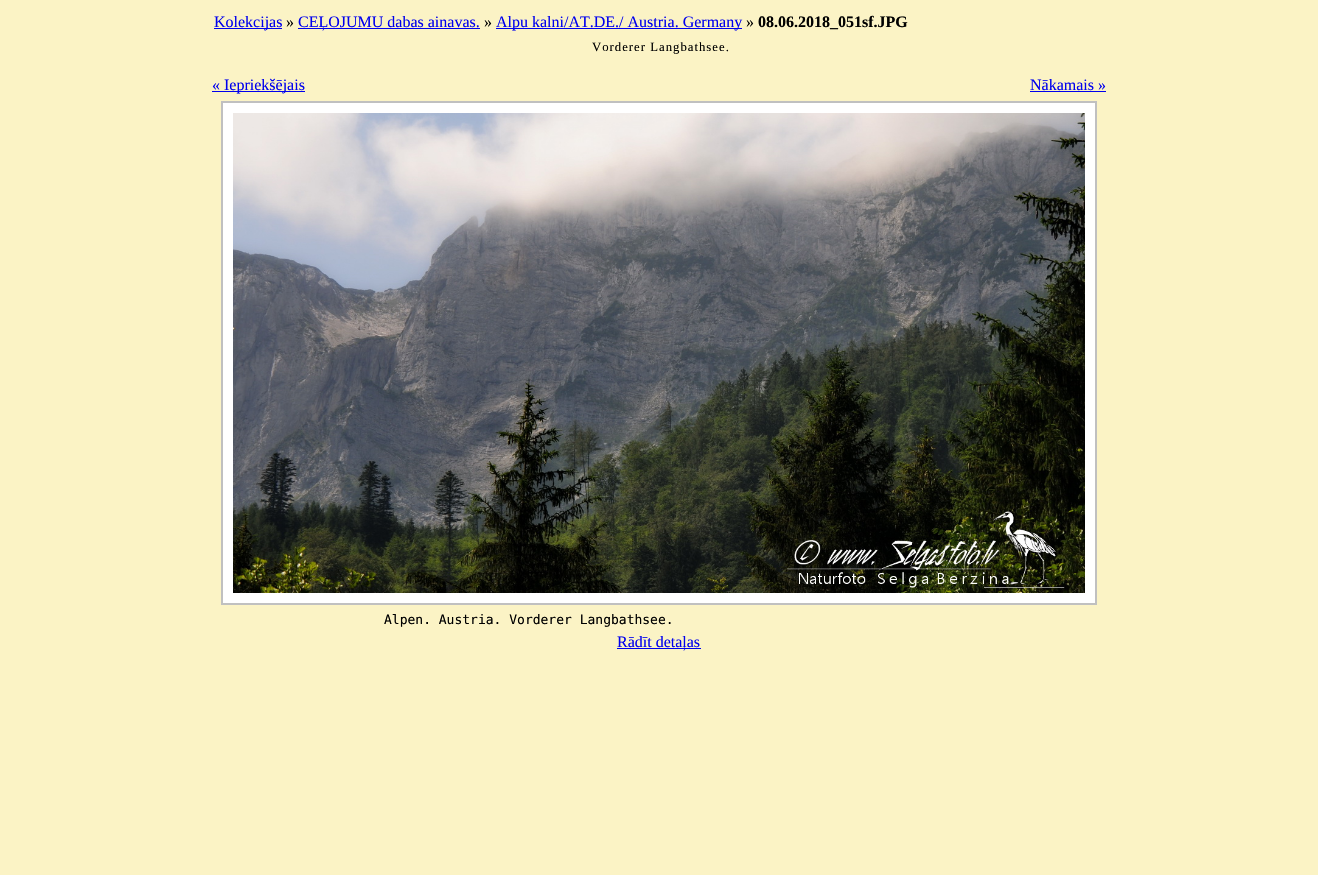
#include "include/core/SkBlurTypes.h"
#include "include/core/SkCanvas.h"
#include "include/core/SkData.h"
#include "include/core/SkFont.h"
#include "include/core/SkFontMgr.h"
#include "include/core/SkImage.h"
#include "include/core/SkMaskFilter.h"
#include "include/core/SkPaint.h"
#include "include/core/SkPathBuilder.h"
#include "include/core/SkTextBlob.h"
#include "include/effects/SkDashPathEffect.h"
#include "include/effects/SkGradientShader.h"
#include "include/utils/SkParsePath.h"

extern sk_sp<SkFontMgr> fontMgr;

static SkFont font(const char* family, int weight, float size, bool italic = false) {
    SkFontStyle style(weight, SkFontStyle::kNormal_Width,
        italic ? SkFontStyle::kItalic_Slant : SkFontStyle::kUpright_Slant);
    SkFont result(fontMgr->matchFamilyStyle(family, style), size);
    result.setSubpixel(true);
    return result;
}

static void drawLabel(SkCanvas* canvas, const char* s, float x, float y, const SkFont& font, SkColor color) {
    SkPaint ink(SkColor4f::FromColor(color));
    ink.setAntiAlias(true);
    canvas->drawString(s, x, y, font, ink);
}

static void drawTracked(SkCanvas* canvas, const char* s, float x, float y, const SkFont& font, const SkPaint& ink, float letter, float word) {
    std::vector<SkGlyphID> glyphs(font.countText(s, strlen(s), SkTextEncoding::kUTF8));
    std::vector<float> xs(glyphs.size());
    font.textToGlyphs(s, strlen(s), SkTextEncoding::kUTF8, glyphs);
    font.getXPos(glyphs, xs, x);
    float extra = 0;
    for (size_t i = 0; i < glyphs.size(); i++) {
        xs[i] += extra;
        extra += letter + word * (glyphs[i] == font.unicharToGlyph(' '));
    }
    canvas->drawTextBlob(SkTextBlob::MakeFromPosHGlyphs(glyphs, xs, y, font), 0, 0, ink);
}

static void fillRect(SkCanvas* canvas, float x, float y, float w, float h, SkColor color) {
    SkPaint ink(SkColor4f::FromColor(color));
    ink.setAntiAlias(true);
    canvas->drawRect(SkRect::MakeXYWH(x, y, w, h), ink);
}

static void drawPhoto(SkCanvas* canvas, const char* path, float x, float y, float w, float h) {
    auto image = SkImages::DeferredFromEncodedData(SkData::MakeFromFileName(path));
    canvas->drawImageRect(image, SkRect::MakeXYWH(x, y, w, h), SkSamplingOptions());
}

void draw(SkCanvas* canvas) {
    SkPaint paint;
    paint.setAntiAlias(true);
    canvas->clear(0xFFFBF3C5);
    fillRect(canvas, 214, 28, 68, 1, 0xFF0000EE);
    SkFont font1 = font("Liberation Serif", 400, 16);
    drawLabel(canvas, "Kolekcijas", 214, 27, font1, 0xFF0000EE);
    drawLabel(canvas, "»", 286, 27, font1, 0xFF000000);
    fillRect(canvas, 298, 28, 182, 1, 0xFF0000EE);
    drawLabel(canvas, "CEĻOJUMU dabas ainavas.", 298, 27, font1, 0xFF0000EE);
    drawLabel(canvas, "»", 484, 27, font1, 0xFF000000);
    fillRect(canvas, 496, 28, 246, 1, 0xFF0000EE);
    drawLabel(canvas, "Alpu kalni/AT.DE./ Austria. Germany", 496, 27, font1, 0xFF0000EE);
    drawLabel(canvas, "»", 746, 27, font1, 0xFF000000);
    SkFont font2 = font("Liberation Serif", 700, 16);
    drawLabel(canvas, "08.06.2018_051sf.JPG", 758, 27, font2, 0xFF000000);
    SkFont font3 = font("Liberation Serif", 400, 12.75f);
    paint.setColor(0xFF000000);
    drawTracked(canvas, "Vorderer Langbathsee.", 592, 51, font3, paint, 1, 0);
    fillRect(canvas, 212, 91, 93, 1, 0xFF0000EE);
    drawLabel(canvas, "« Iepriekšējais", 212, 90, font1, 0xFF0000EE);
    drawLabel(canvas, "Nākamais »", 1030, 90, font1, 0xFF0000EE);
    fillRect(canvas, 1030, 91, 76, 1, 0xFF0000EE);
    paint.setColor(0xFFFFFFFF);
    canvas->drawRect(SkRect::MakeXYWH(222, 102, 874, 502), paint);
    paint.setStroke(true);
    paint.setStrokeWidth(2);
    paint.setColor(0xFFC0C0C0);
    canvas->drawRect(SkRect::MakeXYWH(222, 102, 874, 502), paint);
    drawPhoto(canvas, "assets/img1.png", 233, 113, 852, 480);
    SkFont font4 = font("DejaVu Sans Mono", 400, 13);
    drawLabel(canvas, "Alpen. Austria. Vorderer Langbathsee.", 384, 624, font4, 0xFF000000);
    fillRect(canvas, 617, 648, 84, 1, 0xFF0000EE);
    drawLabel(canvas, "Rādīt detaļas", 617, 647, font1, 0xFF0000EE);
}
